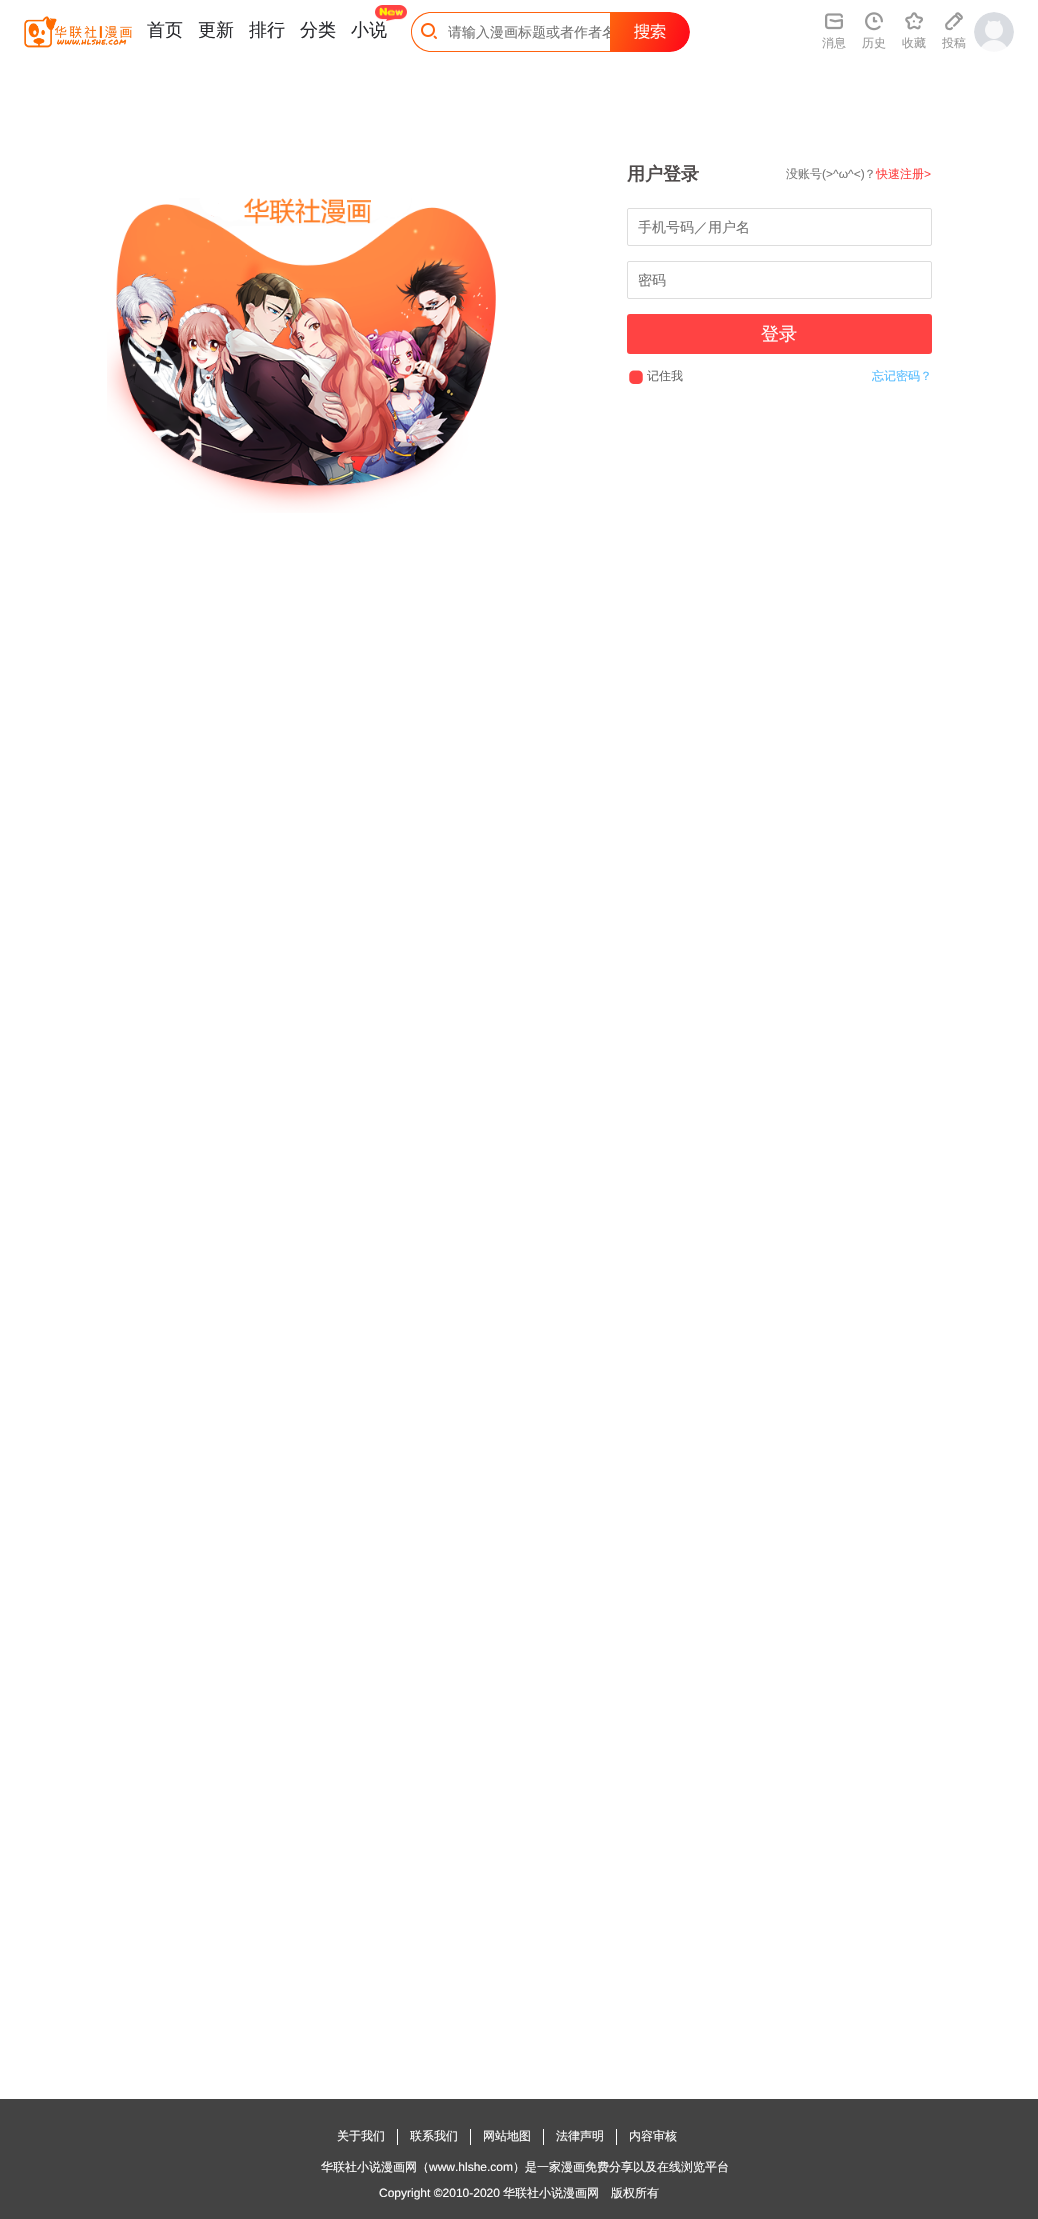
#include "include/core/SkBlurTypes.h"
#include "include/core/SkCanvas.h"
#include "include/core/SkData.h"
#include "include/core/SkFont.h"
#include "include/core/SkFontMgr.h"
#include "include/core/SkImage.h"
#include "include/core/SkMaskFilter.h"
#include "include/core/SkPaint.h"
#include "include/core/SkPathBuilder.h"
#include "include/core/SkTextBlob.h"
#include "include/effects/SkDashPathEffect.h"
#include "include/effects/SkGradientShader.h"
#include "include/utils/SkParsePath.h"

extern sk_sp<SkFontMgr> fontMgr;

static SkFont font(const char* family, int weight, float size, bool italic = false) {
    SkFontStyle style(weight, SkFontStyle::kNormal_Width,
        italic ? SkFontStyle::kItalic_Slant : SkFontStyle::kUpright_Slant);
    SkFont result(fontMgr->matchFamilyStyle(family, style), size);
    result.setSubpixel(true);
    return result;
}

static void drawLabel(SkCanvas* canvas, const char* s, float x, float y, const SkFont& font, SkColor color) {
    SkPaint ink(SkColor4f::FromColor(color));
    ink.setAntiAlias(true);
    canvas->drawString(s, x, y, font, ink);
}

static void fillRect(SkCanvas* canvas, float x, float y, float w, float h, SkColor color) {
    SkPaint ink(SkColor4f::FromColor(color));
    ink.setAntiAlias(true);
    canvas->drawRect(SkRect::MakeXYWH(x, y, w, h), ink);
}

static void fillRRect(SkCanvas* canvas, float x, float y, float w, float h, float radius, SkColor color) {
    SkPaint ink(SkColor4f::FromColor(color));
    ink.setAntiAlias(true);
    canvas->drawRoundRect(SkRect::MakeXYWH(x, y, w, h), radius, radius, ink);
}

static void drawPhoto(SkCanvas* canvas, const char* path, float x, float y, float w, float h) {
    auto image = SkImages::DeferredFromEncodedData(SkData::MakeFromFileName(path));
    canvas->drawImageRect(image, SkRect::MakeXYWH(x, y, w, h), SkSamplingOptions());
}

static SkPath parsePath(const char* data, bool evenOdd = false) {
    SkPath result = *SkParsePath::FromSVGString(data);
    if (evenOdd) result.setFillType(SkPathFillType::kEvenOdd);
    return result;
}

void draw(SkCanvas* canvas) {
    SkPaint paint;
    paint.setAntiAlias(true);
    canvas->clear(0xFFFFFFFF);
    drawPhoto(canvas, "assets/img1.png", 24, 16, 108, 32);
    SkFont font1 = font("WenQuanYi Zen Hei", 500, 18);
    drawLabel(canvas, "首页", 147, 36, font1, 0xFF28292D);
    drawLabel(canvas, "更新", 198, 36, font1, 0xFF28292D);
    drawLabel(canvas, "排行", 249, 36, font1, 0xFF28292D);
    drawLabel(canvas, "分类", 300, 36, font1, 0xFF28292D);
    drawPhoto(canvas, "assets/img2.png", 375, 5, 32, 16);
    drawLabel(canvas, "小说", 351, 36, font1, 0xFF28292D);
    paint.setColor(0xFFFF620E);
    canvas->drawPath(parsePath("M431 12H610V52H431C420 52 411 43 411 32C411 21 420 12 431 12ZM431 13H610V51H431C421 51 412 42 412 32C412 22 421 13 431 13Z", true), paint);
    drawPhoto(canvas, "assets/img3.png", 421, 23, 16, 16);
    SkFont font2 = font("WenQuanYi Zen Hei", 500, 14);
    drawLabel(canvas, "请输入漫画标题或者作者名", 448, 37, font2, 0xFF757575);
    drawPhoto(canvas, "assets/img4.png", 610, 12, 80, 40);
    drawPhoto(canvas, "assets/img5.png", 825, 13, 18, 17);
    SkFont font3 = font("WenQuanYi Zen Hei", 500, 12);
    drawLabel(canvas, "消息", 822, 47, font3, 0xFF999999);
    drawPhoto(canvas, "assets/img6.png", 865, 12, 18, 19);
    drawLabel(canvas, "历史", 862, 47, font3, 0xFF999999);
    drawPhoto(canvas, "assets/img7.png", 905, 12, 18, 18);
    drawLabel(canvas, "收藏", 902, 47, font3, 0xFF999999);
    drawPhoto(canvas, "assets/img8.png", 945, 12, 18, 19);
    drawLabel(canvas, "投稿", 942, 47, font3, 0xFF999999);
    drawPhoto(canvas, "assets/img9.png", 974, 12, 40, 40);
    drawPhoto(canvas, "assets/img10.png", 107, 198, 389, 315);
    SkFont font4 = font("WenQuanYi Zen Hei", 700, 18);
    drawLabel(canvas, "用户登录", 627, 180, font4, 0xFF4E4A4A);
    drawLabel(canvas, "没账号", 786, 178, font3, 0xFF757575);
    SkFont font5 = font("Liberation Sans", 400, 12);
    drawLabel(canvas, "(>^ω^<)", 822, 178, font5, 0xFF757575);
    drawLabel(canvas, "？", 864, 178, font3, 0xFF757575);
    drawLabel(canvas, "快速注册", 876, 178, font3, 0xFFFF4343);
    drawLabel(canvas, ">", 924, 178, font5, 0xFFFF4343);
    paint.setStroke(true);
    paint.setStrokeWidth(1);
    paint.setColor(0xFFDDDDDD);
    canvas->drawRoundRect(SkRect::MakeXYWH(627.5f, 208.5f, 304, 37), 1.5f, 1.5f, paint);
    drawLabel(canvas, "手机号码／用户名", 638, 232, font2, 0xFF757575);
    canvas->drawRoundRect(SkRect::MakeXYWH(627.5f, 261.5f, 304, 37), 1.5f, 1.5f, paint);
    drawLabel(canvas, "密码", 638, 285, font2, 0xFF757575);
    fillRRect(canvas, 627, 314, 305, 40, 3, 0xFFFF4343);
    drawLabel(canvas, "登录", 761, 340, font1, 0xFFFFFFFF);
    drawPhoto(canvas, "assets/img11.png", 629, 370, 14, 14);
    drawLabel(canvas, "记住我", 647, 380, font3, 0xFF666666);
    drawLabel(canvas, "忘记密码？", 872, 380, font3, 0xFF53BBFF);
    fillRect(canvas, 0, 2099, 1038, 120, 0xFF434343);
    drawLabel(canvas, "关于我们", 337, 2140, font3, 0xFFFFFFFF);
    fillRect(canvas, 397, 2129, 1, 16, 0xFFFFFFFF);
    drawLabel(canvas, "联系我们", 410, 2140, font3, 0xFFFFFFFF);
    fillRect(canvas, 470, 2129, 1, 16, 0xFFFFFFFF);
    drawLabel(canvas, "网站地图", 483, 2140, font3, 0xFFFFFFFF);
    fillRect(canvas, 543, 2129, 1, 16, 0xFFFFFFFF);
    drawLabel(canvas, "法律声明", 556, 2140, font3, 0xFFFFFFFF);
    fillRect(canvas, 616, 2129, 1, 16, 0xFFFFFFFF);
    drawLabel(canvas, "内容审核", 629, 2140, font3, 0xFFFFFFFF);
    drawLabel(canvas, "华联社小说漫画网（", 321, 2171, font3, 0xFFFFFFFF);
    drawLabel(canvas, "www.hlshe.com", 429, 2171, font5, 0xFFFFFFFF);
    drawLabel(canvas, "）是一家漫画免费分享以及在线浏览平台", 513, 2171, font3, 0xFFFFFFFF);
    drawLabel(canvas, "Copyright ©2010-2020", 379, 2197, font5, 0xFFFFFFFF);
    drawLabel(canvas, "华联社小说漫画网", 503, 2197, font3, 0xFFFFFFFF);
    drawLabel(canvas, "版权所有", 611, 2197, font3, 0xFFFFFFFF);
}
